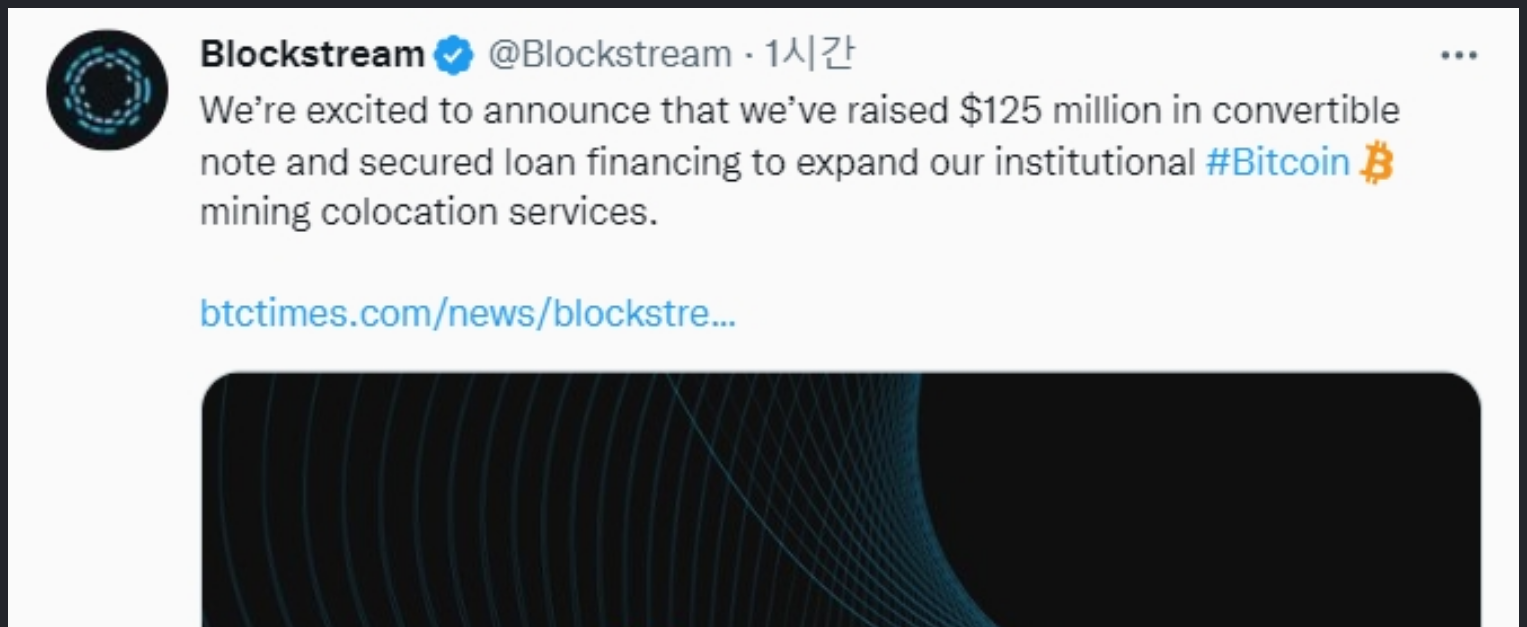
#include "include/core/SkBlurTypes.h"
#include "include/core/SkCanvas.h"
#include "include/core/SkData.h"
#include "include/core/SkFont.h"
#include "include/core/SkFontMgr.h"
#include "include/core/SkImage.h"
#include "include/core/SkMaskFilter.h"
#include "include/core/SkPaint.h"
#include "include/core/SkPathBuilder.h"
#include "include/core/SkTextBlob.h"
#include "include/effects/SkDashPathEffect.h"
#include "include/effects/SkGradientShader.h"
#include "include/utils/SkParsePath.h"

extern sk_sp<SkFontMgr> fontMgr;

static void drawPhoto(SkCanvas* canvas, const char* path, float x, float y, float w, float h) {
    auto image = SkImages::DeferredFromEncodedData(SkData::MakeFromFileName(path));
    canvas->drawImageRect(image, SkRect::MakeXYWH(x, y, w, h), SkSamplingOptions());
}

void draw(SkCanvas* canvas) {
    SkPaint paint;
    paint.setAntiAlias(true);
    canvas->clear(0xFF23252B);
    drawPhoto(canvas, "assets/img1.png", 8, 8, 1511, 619);
}
